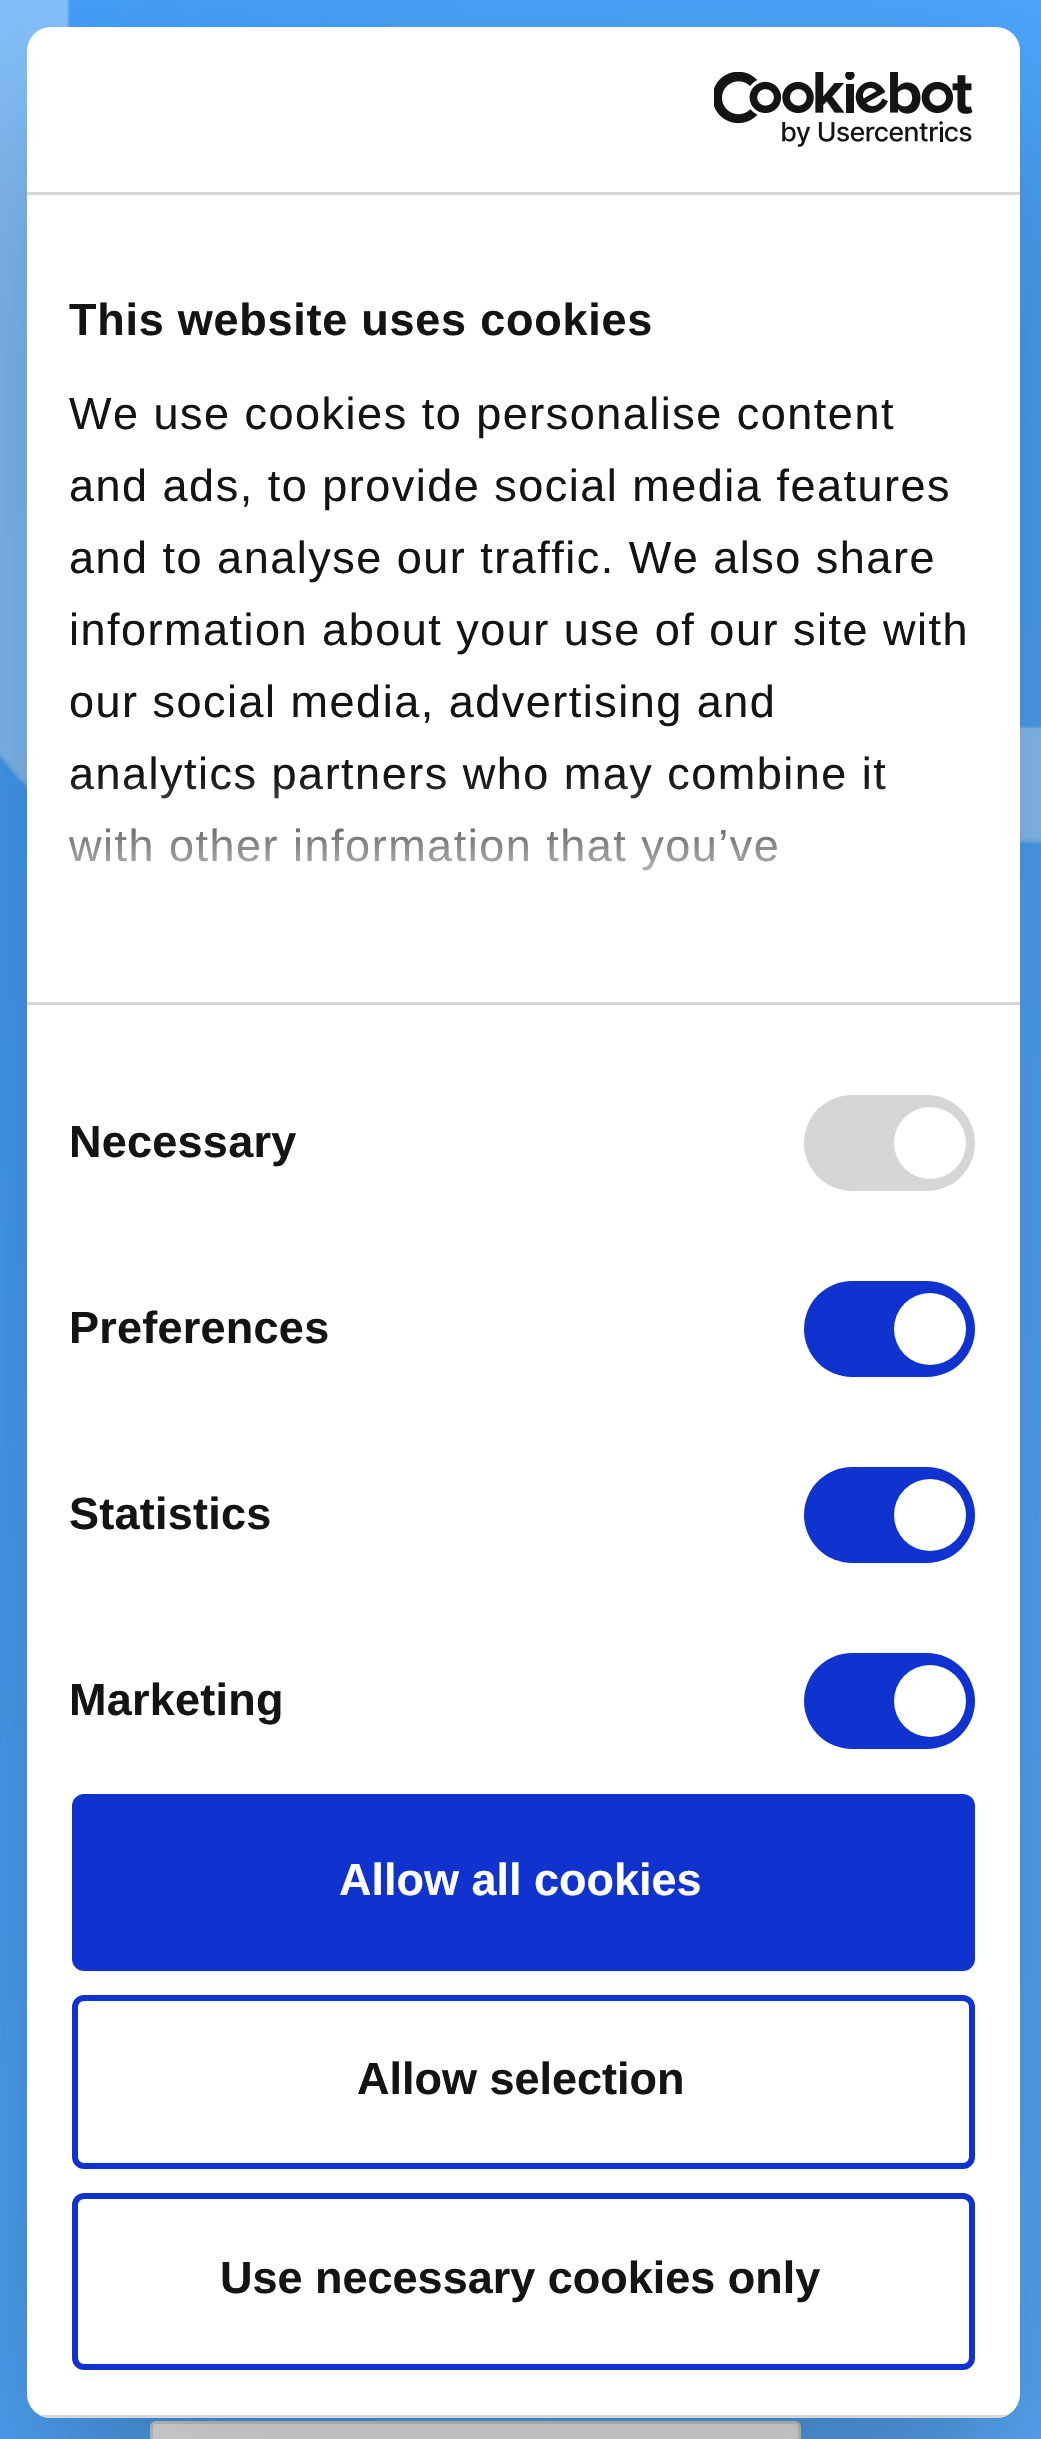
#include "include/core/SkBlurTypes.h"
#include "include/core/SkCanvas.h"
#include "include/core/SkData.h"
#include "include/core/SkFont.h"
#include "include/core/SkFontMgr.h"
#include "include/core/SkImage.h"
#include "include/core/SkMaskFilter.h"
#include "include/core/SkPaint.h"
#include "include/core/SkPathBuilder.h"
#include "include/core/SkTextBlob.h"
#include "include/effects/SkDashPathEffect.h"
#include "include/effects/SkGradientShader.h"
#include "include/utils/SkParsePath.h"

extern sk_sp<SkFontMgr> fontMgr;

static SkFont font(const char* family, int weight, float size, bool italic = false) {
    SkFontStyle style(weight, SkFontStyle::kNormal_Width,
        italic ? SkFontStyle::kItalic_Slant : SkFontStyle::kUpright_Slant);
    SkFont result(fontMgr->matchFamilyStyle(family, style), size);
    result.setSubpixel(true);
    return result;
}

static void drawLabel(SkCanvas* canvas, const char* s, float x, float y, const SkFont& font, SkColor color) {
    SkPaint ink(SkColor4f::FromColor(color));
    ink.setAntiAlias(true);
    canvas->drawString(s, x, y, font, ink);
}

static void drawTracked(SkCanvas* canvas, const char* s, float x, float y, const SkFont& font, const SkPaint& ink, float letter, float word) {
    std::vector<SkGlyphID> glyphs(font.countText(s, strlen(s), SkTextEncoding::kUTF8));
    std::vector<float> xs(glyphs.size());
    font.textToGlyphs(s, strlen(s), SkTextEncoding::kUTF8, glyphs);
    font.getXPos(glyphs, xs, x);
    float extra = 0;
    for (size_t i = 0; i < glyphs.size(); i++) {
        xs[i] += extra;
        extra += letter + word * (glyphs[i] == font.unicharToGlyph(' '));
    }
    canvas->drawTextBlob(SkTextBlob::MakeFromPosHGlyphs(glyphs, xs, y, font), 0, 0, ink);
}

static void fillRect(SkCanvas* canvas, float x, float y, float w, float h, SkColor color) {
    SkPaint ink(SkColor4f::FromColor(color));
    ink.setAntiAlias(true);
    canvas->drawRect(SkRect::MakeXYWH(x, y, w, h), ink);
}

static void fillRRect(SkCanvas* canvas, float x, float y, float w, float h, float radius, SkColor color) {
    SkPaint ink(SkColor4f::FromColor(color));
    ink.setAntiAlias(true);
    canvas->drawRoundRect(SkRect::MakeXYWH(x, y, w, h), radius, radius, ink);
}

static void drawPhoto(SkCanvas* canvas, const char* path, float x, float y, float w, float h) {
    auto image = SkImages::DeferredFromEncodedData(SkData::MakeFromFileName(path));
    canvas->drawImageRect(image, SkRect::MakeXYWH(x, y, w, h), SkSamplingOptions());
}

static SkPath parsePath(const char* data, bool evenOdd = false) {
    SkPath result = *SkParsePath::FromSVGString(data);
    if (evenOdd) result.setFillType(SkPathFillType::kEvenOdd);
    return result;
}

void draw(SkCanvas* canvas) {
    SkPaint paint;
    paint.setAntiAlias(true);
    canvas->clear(0xFFFFFFFF);
    drawPhoto(canvas, "assets/img1.png", 0, 0, 1041, 2439);
    paint.setColor(0xFFFAFAFA);
    canvas->drawRoundRect(SkRect::MakeXYWH(151.5f, 2422.5f, 648, 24), 4.5f, 4.5f, paint);
    paint.setStroke(true);
    paint.setStrokeWidth(3);
    paint.setColor(0xFFDDDDDD);
    canvas->drawRoundRect(SkRect::MakeXYWH(151.5f, 2422.5f, 648, 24), 4.5f, 4.5f, paint);
    canvas->save();
    canvas->clipPath(parsePath("M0 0H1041V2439H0ZM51 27H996C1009.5 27 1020 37.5 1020 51V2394C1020 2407.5 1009.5 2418 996 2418H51C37.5 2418 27 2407.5 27 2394V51C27 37.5 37.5 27 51 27Z", true), true);
    paint.setStroke(false);
    paint.setColor(0x4D000000);
    paint.setMaskFilter(SkMaskFilter::MakeBlur(kNormal_SkBlurStyle, 102));
    canvas->drawRoundRect(SkRect::MakeXYWH(27, 123, 993, 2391), 24, 24, paint);
    paint.setMaskFilter(nullptr);
    canvas->restore();
    fillRRect(canvas, 27, 27, 993, 2391, 24, 0xFFFFFFFF);
    fillRect(canvas, 27, 192, 993, 3, 0xFFD6D6D6);
    drawPhoto(canvas, "assets/img2.png", 714, 72, 259, 75);
    fillRect(canvas, 27, 1002, 993, 3, 0xFFD6D6D6);
    SkFont font1 = font("Liberation Sans", 700, 45);
    paint.setColor(0xFF141414);
    drawTracked(canvas, "This website uses cookies", 69, 335, font1, paint, 0.75f, 0);
    SkFont font2 = font("Liberation Sans", 400, 45);
    drawTracked(canvas, "We use cookies to personalise content", 69, 429, font2, paint, 1.5f, 0);
    drawTracked(canvas, "and ads, to provide social media features", 69, 501, font2, paint, 1.5f, 0);
    drawTracked(canvas, "and to analyse our traffic. We also share", 69, 573, font2, paint, 1.5f, 0);
    drawTracked(canvas, "information about your use of our site with", 69, 645, font2, paint, 1.5f, 0);
    drawTracked(canvas, "our social media, advertising and", 69, 717, font2, paint, 1.5f, 0);
    drawTracked(canvas, "analytics partners who may combine it", 69, 789, font2, paint, 1.5f, 0);
    drawTracked(canvas, "with other information that you’ve", 69, 861, font2, paint, 1.5f, 0);
    {
        const SkColor colors[] = {0xFFFFFFFF, 0xCCFFFFFF, 0x00FFFFFF};
        const float stops[] = {0, 0.5f, 1};
        const SkPoint ends[] = {{503, 1001}, {503, 776}};
        paint.setShader(SkGradientShader::MakeLinear(ends, colors, stops, 3, SkTileMode::kClamp));
        paint.setAlpha(255);
    }
    canvas->drawRect(SkRect::MakeXYWH(69, 779, 817, 92), paint);
    paint.setShader(nullptr);
    paint.setColor(0xFF141414);
    drawTracked(canvas, "Necessary", 69, 1157, font1, paint, 0.25f, 0);
    fillRRect(canvas, 804, 1095, 171, 96, 48, 0xFFD6D6D6);
    paint.setColor(0xFFFFFFFF);
    canvas->drawCircle(930, 1143, 36, paint);
    paint.setColor(0xFF141414);
    drawTracked(canvas, "Preferences", 69, 1343, font1, paint, 0.25f, 0);
    fillRRect(canvas, 804, 1281, 171, 96, 48, 0xFF1032CF);
    paint.setColor(0xFFFFFFFF);
    canvas->drawCircle(930, 1329, 36, paint);
    paint.setColor(0xFF141414);
    drawTracked(canvas, "Statistics", 69, 1529, font1, paint, 0.25f, 0);
    fillRRect(canvas, 804, 1467, 171, 96, 48, 0xFF1032CF);
    paint.setColor(0xFFFFFFFF);
    canvas->drawCircle(930, 1515, 36, paint);
    paint.setColor(0xFF141414);
    drawTracked(canvas, "Marketing", 69, 1715, font1, paint, 0.25f, 0);
    fillRRect(canvas, 804, 1653, 171, 96, 48, 0xFF1032CF);
    paint.setColor(0xFFFFFFFF);
    canvas->drawCircle(930, 1701, 36, paint);
    canvas->save();
    canvas->clipPath(parsePath("M51 27H996C1009.5 27 1020 37.5 1020 51V2394C1020 2407.5 1009.5 2418 996 2418H51C37.5 2418 27 2407.5 27 2394V51C27 37.5 37.5 27 51 27Z"), true);
    fillRect(canvas, 39, 2415, 969, 3, 0xFFD6D6D6);
    canvas->restore();
    paint.setColor(0xFF1032CF);
    canvas->drawRoundRect(SkRect::MakeXYWH(75, 1797, 897, 171), 9, 9, paint);
    paint.setStroke(true);
    paint.setStrokeWidth(6);
    canvas->drawRoundRect(SkRect::MakeXYWH(75, 1797, 897, 171), 9, 9, paint);
    drawLabel(canvas, "Allow all cookies", 339, 1895, font1, 0xFFFFFFFF);
    canvas->drawRoundRect(SkRect::MakeXYWH(75, 1998, 897, 168), 9, 9, paint);
    drawLabel(canvas, "Allow selection", 357, 2094, font1, 0xFF141414);
    canvas->drawRoundRect(SkRect::MakeXYWH(75, 2196, 897, 171), 9, 9, paint);
    drawLabel(canvas, "Use necessary cookies only", 220, 2293, font1, 0xFF141414);
}
